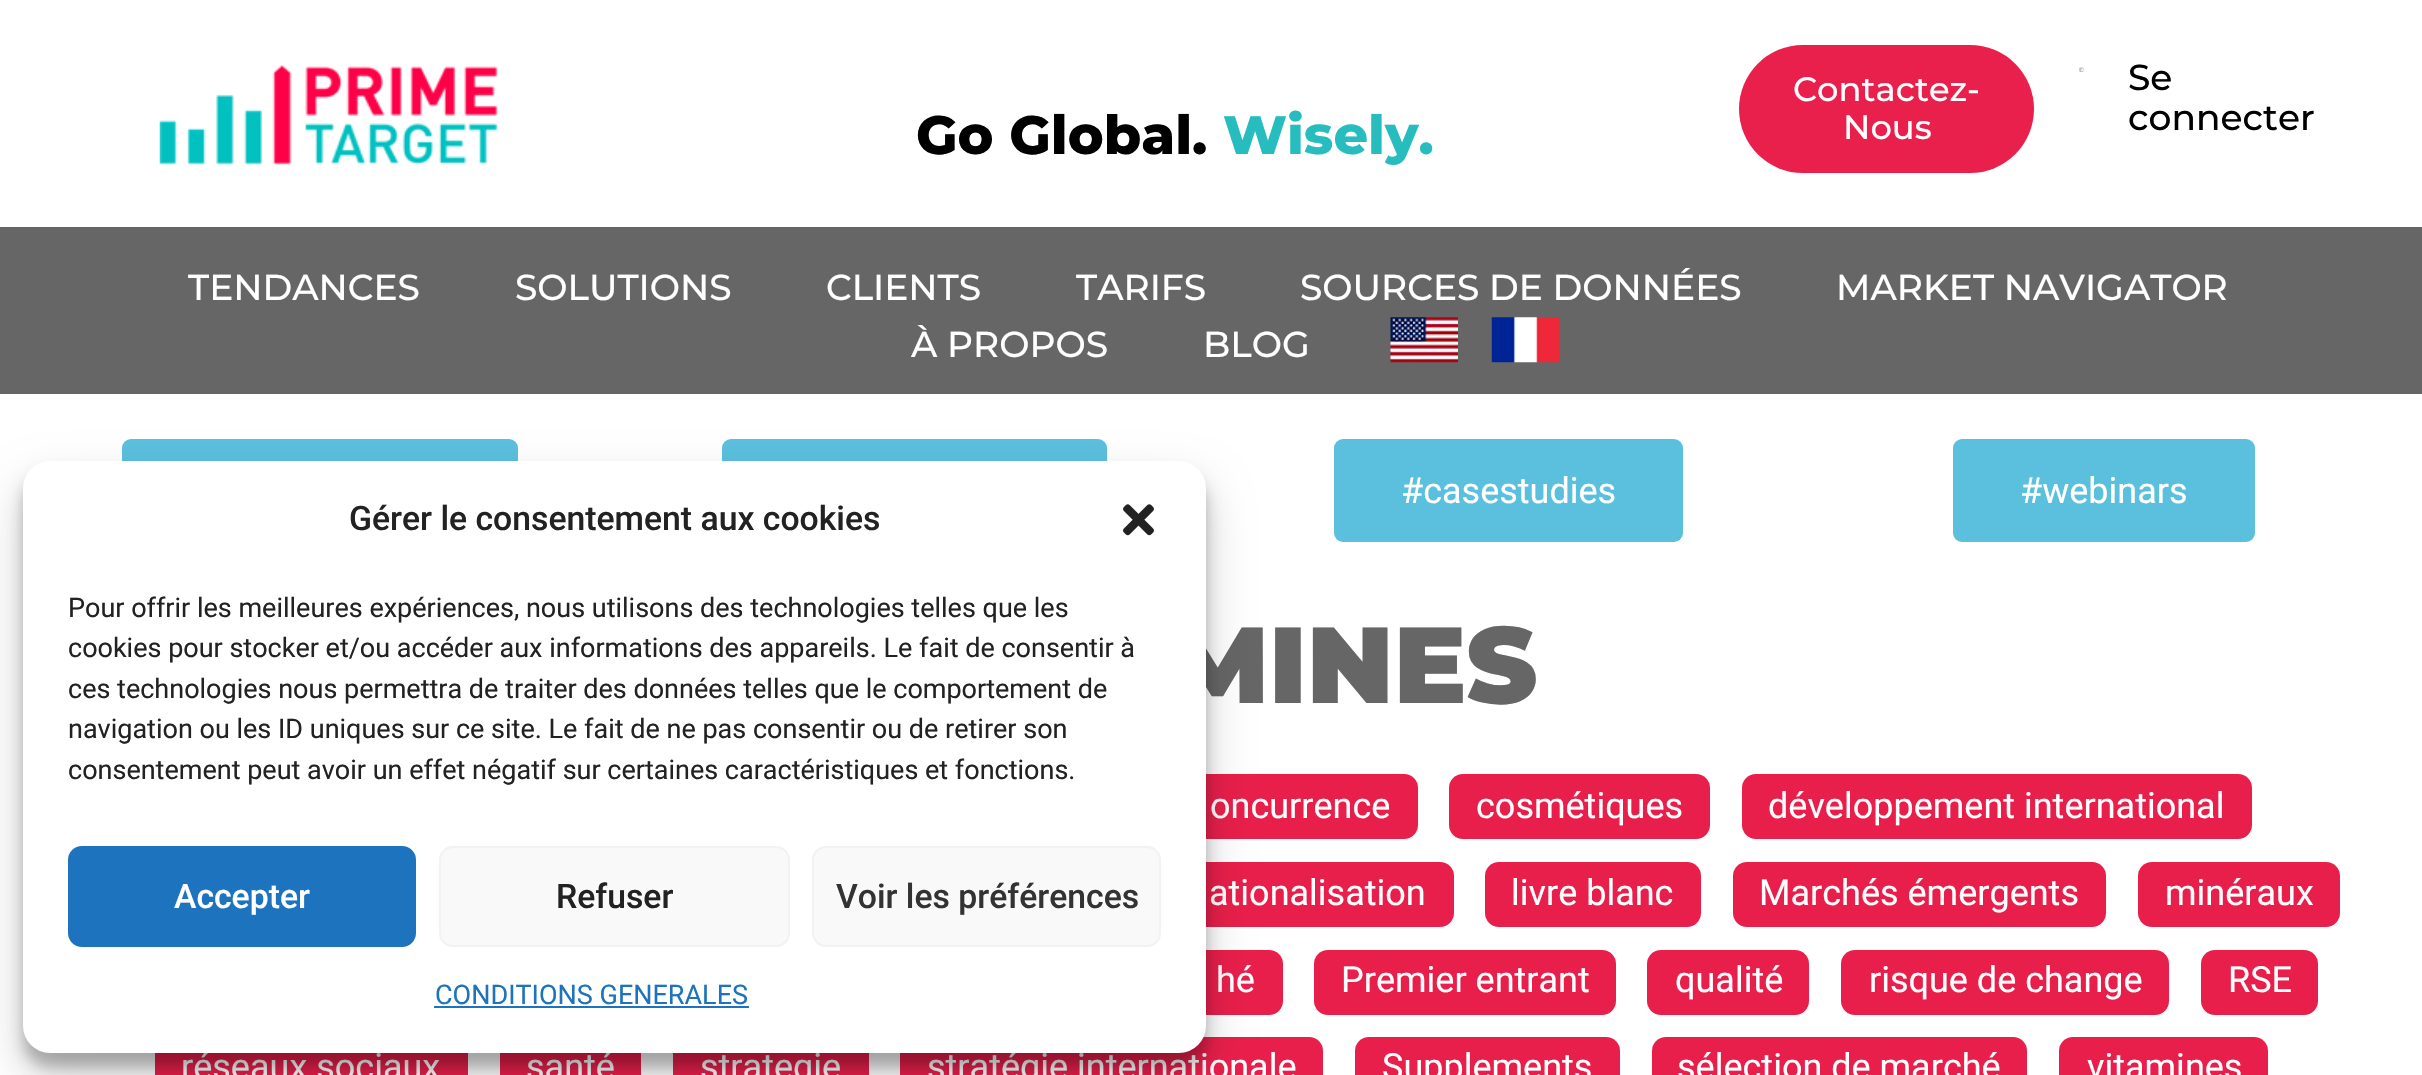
#include "include/core/SkBlurTypes.h"
#include "include/core/SkCanvas.h"
#include "include/core/SkData.h"
#include "include/core/SkFont.h"
#include "include/core/SkFontMgr.h"
#include "include/core/SkImage.h"
#include "include/core/SkMaskFilter.h"
#include "include/core/SkPaint.h"
#include "include/core/SkPathBuilder.h"
#include "include/core/SkTextBlob.h"
#include "include/effects/SkDashPathEffect.h"
#include "include/effects/SkGradientShader.h"
#include "include/utils/SkParsePath.h"

extern sk_sp<SkFontMgr> fontMgr;

static SkFont font(const char* family, int weight, float size, bool italic = false) {
    SkFontStyle style(weight, SkFontStyle::kNormal_Width,
        italic ? SkFontStyle::kItalic_Slant : SkFontStyle::kUpright_Slant);
    SkFont result(fontMgr->matchFamilyStyle(family, style), size);
    result.setSubpixel(true);
    return result;
}

static void drawLabel(SkCanvas* canvas, const char* s, float x, float y, const SkFont& font, SkColor color) {
    SkPaint ink(SkColor4f::FromColor(color));
    ink.setAntiAlias(true);
    canvas->drawString(s, x, y, font, ink);
}

static void fillRect(SkCanvas* canvas, float x, float y, float w, float h, SkColor color) {
    SkPaint ink(SkColor4f::FromColor(color));
    ink.setAntiAlias(true);
    canvas->drawRect(SkRect::MakeXYWH(x, y, w, h), ink);
}

static void fillRRect(SkCanvas* canvas, float x, float y, float w, float h, float radius, SkColor color) {
    SkPaint ink(SkColor4f::FromColor(color));
    ink.setAntiAlias(true);
    canvas->drawRoundRect(SkRect::MakeXYWH(x, y, w, h), radius, radius, ink);
}

static void drawPhoto(SkCanvas* canvas, const char* path, float x, float y, float w, float h) {
    auto image = SkImages::DeferredFromEncodedData(SkData::MakeFromFileName(path));
    canvas->drawImageRect(image, SkRect::MakeXYWH(x, y, w, h), SkSamplingOptions());
}

void draw(SkCanvas* canvas) {
    SkPaint paint;
    paint.setAntiAlias(true);
    canvas->clear(0xFFFFFFFF);
    drawPhoto(canvas, "assets/img1.png", 159, 65, 339, 100);
    SkFont font1 = font("Montserrat", 800, 54);
    drawLabel(canvas, "Go Global.", 916, 154, font1, 0xFF000000);
    drawLabel(canvas, "Wisely.", 1223, 154, font1, 0xFF27BDBE);
    drawPhoto(canvas, "assets/img2.png", 2079, 67, 5, 5);
    SkFont font2 = font("Montserrat", 500, 36);
    drawLabel(canvas, "Se", 2128, 90, font2, 0xFF000000);
    drawLabel(canvas, "connecter", 2128, 130, font2, 0xFF000000);
    fillRRect(canvas, 1739, 45, 295, 128, 64, 0xFFE91F4C);
    SkFont font3 = font("Montserrat", 500, 33.75f);
    drawLabel(canvas, "Contactez-", 1793, 101, font3, 0xFFFFFFFF);
    drawLabel(canvas, "Nous", 1843, 139, font3, 0xFFFFFFFF);
    fillRect(canvas, 0, 227, 2422, 167, 0xFF666666);
    drawLabel(canvas, "TENDANCES", 188, 300, font2, 0xFFFFFFFF);
    drawLabel(canvas, "SOLUTIONS", 515, 300, font2, 0xFFFFFFFF);
    drawLabel(canvas, "CLIENTS", 826, 300, font2, 0xFFFFFFFF);
    drawLabel(canvas, "TARIFS", 1076, 300, font2, 0xFFFFFFFF);
    drawLabel(canvas, "SOURCES DE DONNÉES", 1300, 300, font2, 0xFFFFFFFF);
    drawLabel(canvas, "MARKET NAVIGATOR", 1836, 300, font2, 0xFFFFFFFF);
    drawLabel(canvas, "À PROPOS", 911, 357, font2, 0xFFFFFFFF);
    drawLabel(canvas, "BLOG", 1203, 357, font2, 0xFFFFFFFF);
    drawPhoto(canvas, "assets/img3.png", 1390, 317, 68, 46);
    drawPhoto(canvas, "assets/img4.png", 1491, 317, 69, 46);
    fillRRect(canvas, 122, 439, 396, 103, 9, 0xFF5BC0DE);
    fillRRect(canvas, 722, 439, 385, 103, 9, 0xFF5BC0DE);
    fillRRect(canvas, 1334, 439, 349, 103, 9, 0xFF5BC0DE);
    SkFont font4 = font("Roboto", 400, 36);
    drawLabel(canvas, "#casestudies", 1401, 503, font4, 0xFFFFFFFF);
    fillRRect(canvas, 1953, 439, 302, 103, 9, 0xFF5BC0DE);
    drawLabel(canvas, "#webinars", 2020, 503, font4, 0xFFFFFFFF);
    SkFont font5 = font("Montserrat", 900, 108);
    drawLabel(canvas, "MINES", 1166, 703, font5, 0xFF666666);
    fillRRect(canvas, 1159, 774, 259, 65, 14, 0xFFE91F4B);
    drawLabel(canvas, "oncurrence", 1210, 818, font4, 0xFFFFFFFF);
    fillRRect(canvas, 1449, 774, 261, 65, 14, 0xFFE91F4B);
    drawLabel(canvas, "cosmétiques", 1476, 818, font4, 0xFFFFFFFF);
    fillRRect(canvas, 1742, 774, 510, 65, 14, 0xFFE91F4B);
    drawLabel(canvas, "développement international", 1768, 818, font4, 0xFFFFFFFF);
    fillRRect(canvas, 1091, 862, 363, 65, 14, 0xFFE91F4B);
    drawLabel(canvas, "ationalisation", 1209, 905, font4, 0xFFFFFFFF);
    fillRRect(canvas, 1485, 862, 216, 65, 14, 0xFFE91F4B);
    drawLabel(canvas, "livre blanc", 1511, 905, font4, 0xFFFFFFFF);
    fillRRect(canvas, 1733, 862, 373, 65, 14, 0xFFE91F4B);
    drawLabel(canvas, "Marchés émergents", 1759, 905, font4, 0xFFFFFFFF);
    fillRRect(canvas, 2138, 862, 202, 65, 14, 0xFFE91F4B);
    drawLabel(canvas, "minéraux", 2165, 905, font4, 0xFFFFFFFF);
    fillRRect(canvas, 907, 950, 376, 65, 14, 0xFFE91F4B);
    drawLabel(canvas, "hé", 1216, 992, font4, 0xFFFFFFFF);
    fillRRect(canvas, 1314, 950, 302, 65, 14, 0xFFE91F4B);
    drawLabel(canvas, "Premier entrant", 1341, 992, font4, 0xFFFFFFFF);
    fillRRect(canvas, 1647, 950, 162, 65, 14, 0xFFE91F4B);
    drawLabel(canvas, "qualité", 1675, 992, font4, 0xFFFFFFFF);
    fillRRect(canvas, 1841, 950, 328, 65, 14, 0xFFE91F4B);
    drawLabel(canvas, "risque de change", 1869, 992, font4, 0xFFFFFFFF);
    fillRRect(canvas, 2201, 950, 117, 65, 14, 0xFFE91F4B);
    drawLabel(canvas, "RSE", 2228, 992, font4, 0xFFFFFFFF);
    fillRect(canvas, 155, 1053, 313, 22, 0xFFE91F4B);
    drawLabel(canvas, "réseaux sociaux", 181, 1079, font4, 0xFFFFFFFF);
    fillRect(canvas, 500, 1053, 141, 22, 0xFFE91F4B);
    drawLabel(canvas, "santé", 526, 1079, font4, 0xFFFFFFFF);
    fillRect(canvas, 673, 1053, 196, 22, 0xFFE91F4B);
    drawLabel(canvas, "strategie", 700, 1079, font4, 0xFFFFFFFF);
    fillRRect(canvas, 900, 1037, 423, 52, 14, 0xFFE91F4B);
    drawLabel(canvas, "stratégie internationale", 927, 1079, font4, 0xFFFFFFFF);
    fillRRect(canvas, 1355, 1037, 265, 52, 14, 0xFFE91F4B);
    drawLabel(canvas, "Supplements", 1382, 1079, font4, 0xFFFFFFFF);
    fillRRect(canvas, 1652, 1037, 375, 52, 14, 0xFFE91F4B);
    drawLabel(canvas, "sélection de marché", 1677, 1079, font4, 0xFFFFFFFF);
    fillRRect(canvas, 2059, 1037, 209, 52, 14, 0xFFE91F4B);
    drawLabel(canvas, "vitamines", 2087, 1079, font4, 0xFFFFFFFF);
    paint.setColor(0x3B000000);
    paint.setMaskFilter(SkMaskFilter::MakeBlur(kNormal_SkBlurStyle, 7));
    canvas->drawRoundRect(SkRect::MakeXYWH(23, 475, 1183, 592), 27, 27, paint);
    paint.setMaskFilter(nullptr);
    paint.setColor(0x30000000);
    paint.setMaskFilter(SkMaskFilter::MakeBlur(kNormal_SkBlurStyle, 22.5f));
    canvas->drawRoundRect(SkRect::MakeXYWH(23, 484, 1183, 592), 27, 27, paint);
    paint.setMaskFilter(nullptr);
    fillRRect(canvas, 23, 461, 1183, 592, 27, 0xFFFFFFFF);
    SkFont font6 = font("Roboto", 500, 33.75f);
    drawLabel(canvas, "Gérer le consentement aux cookies", 349, 530, font6, 0xFF222222);
    drawPhoto(canvas, "assets/img5.png", 1123, 504, 31, 32);
    SkFont font7 = font("Roboto", 400, 27);
    drawLabel(canvas, "Pour offrir les meilleures expériences, nous utilisons des technologies telles que les", 68, 617, font7, 0xFF222222);
    drawLabel(canvas, "cookies pour stocker et/ou accéder aux informations des appareils. Le fait de consentir à", 68, 657, font7, 0xFF222222);
    drawLabel(canvas, "ces technologies nous permettra de traiter des données telles que le comportement de", 68, 698, font7, 0xFF222222);
    drawLabel(canvas, "navigation ou les ID uniques sur ce site. Le fait de ne pas consentir ou de retirer son", 68, 738, font7, 0xFF222222);
    drawLabel(canvas, "consentement peut avoir un effet négatif sur certaines caractéristiques et fonctions.", 68, 779, font7, 0xFF222222);
    paint.setColor(0xFF1E73BE);
    canvas->drawRoundRect(SkRect::MakeXYWH(69, 847, 346, 99), 13, 13, paint);
    paint.setStroke(true);
    paint.setStrokeWidth(2);
    canvas->drawRoundRect(SkRect::MakeXYWH(69, 847, 346, 99), 13, 13, paint);
    drawLabel(canvas, "Accepter", 174, 908, font6, 0xFFFFFFFF);
    paint.setStroke(false);
    paint.setColor(0xFFF9F9F9);
    canvas->drawRoundRect(SkRect::MakeXYWH(440, 847, 349, 99), 13, 13, paint);
    paint.setStroke(true);
    paint.setColor(0xFFF2F2F2);
    canvas->drawRoundRect(SkRect::MakeXYWH(440, 847, 349, 99), 13, 13, paint);
    drawLabel(canvas, "Refuser", 556, 908, font6, 0xFF222222);
    paint.setStroke(false);
    paint.setColor(0xFFF9F9F9);
    canvas->drawRoundRect(SkRect::MakeXYWH(813, 847, 347, 99), 13, 13, paint);
    paint.setStroke(true);
    paint.setColor(0xFFF2F2F2);
    canvas->drawRoundRect(SkRect::MakeXYWH(813, 847, 347, 99), 13, 13, paint);
    drawLabel(canvas, "Voir les préférences", 836, 908, font6, 0xFF333333);
    drawLabel(canvas, "CONDITIONS GENERALES", 435, 1004, font7, 0xFF1E73BE);
    fillRect(canvas, 434, 1006, 315, 2, 0xFF1E73BE);
}
